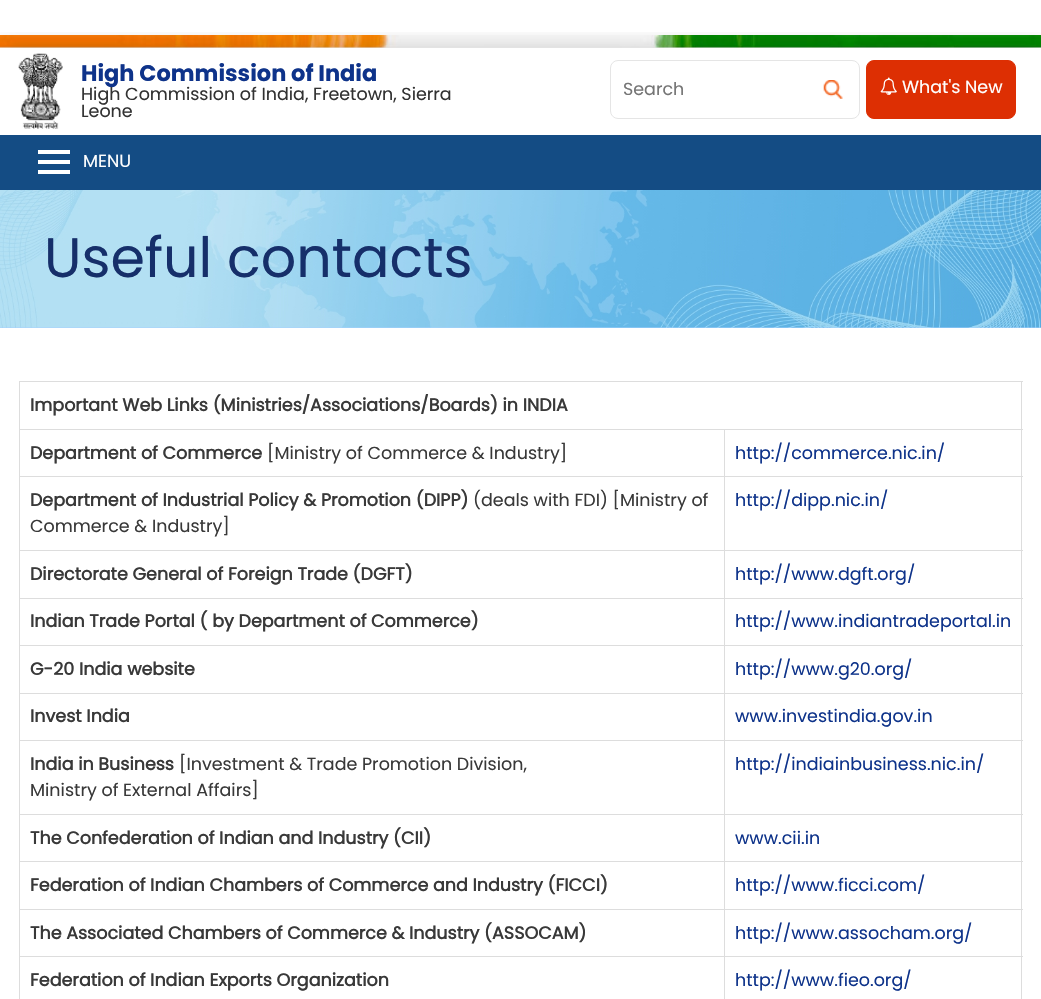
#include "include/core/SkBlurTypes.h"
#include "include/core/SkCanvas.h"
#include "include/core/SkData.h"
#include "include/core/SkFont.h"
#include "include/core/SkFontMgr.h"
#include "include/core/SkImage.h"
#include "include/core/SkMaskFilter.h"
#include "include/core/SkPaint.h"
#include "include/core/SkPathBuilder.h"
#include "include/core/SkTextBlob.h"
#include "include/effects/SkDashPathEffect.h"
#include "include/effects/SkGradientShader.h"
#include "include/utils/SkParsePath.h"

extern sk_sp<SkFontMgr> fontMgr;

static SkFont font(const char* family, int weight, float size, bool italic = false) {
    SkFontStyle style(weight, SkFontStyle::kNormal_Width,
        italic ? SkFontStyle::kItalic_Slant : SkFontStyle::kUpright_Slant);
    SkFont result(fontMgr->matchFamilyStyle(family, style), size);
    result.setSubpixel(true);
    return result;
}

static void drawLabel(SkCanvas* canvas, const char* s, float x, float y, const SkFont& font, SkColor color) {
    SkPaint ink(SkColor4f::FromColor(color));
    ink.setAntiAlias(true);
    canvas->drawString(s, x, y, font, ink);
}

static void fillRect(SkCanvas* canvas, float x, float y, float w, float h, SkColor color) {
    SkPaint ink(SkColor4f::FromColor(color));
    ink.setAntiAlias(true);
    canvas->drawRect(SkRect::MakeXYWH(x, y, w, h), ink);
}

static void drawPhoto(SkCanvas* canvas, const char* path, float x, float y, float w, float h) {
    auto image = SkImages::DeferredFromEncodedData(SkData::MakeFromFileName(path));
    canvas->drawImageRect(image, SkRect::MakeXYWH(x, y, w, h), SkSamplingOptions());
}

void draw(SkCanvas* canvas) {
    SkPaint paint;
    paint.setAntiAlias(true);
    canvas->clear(0xFFFFFFFF);
    drawPhoto(canvas, "assets/img1.png", 0, 35, 1041, 13);
    canvas->save();
    canvas->clipRect(SkRect::MakeXYWH(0, 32, 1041, 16));
    paint.setColor(0x33000000);
    paint.setMaskFilter(SkMaskFilter::MakeBlur(kNormal_SkBlurStyle, 12.5f));
    canvas->drawRect(SkRect::MakeXYWH(0, 48, 1041, 142), paint);
    paint.setMaskFilter(nullptr);
    canvas->restore();
    drawPhoto(canvas, "assets/img2.png", 18, 53, 45, 76);
    SkFont font1 = font("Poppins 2", 700, 22.5f);
    drawLabel(canvas, "High Commission of India", 81, 81, font1, 0xFF0E338A);
    SkFont font2 = font("Poppins", 400, 17.5f);
    drawLabel(canvas, "High Commission of India, Freetown, Sierra", 81, 100, font2, 0xFF323232);
    drawLabel(canvas, "Leone", 81, 117, font2, 0xFF323232);
    paint.setStroke(true);
    paint.setStrokeWidth(1);
    paint.setColor(0xFFE5E5E5);
    canvas->drawRoundRect(SkRect::MakeXYWH(610.5f, 60.5f, 249, 58), 7.5f, 7.5f, paint);
    drawLabel(canvas, "Search", 623, 95, font2, 0xFF757575);
    drawPhoto(canvas, "assets/img3.png", 823, 80, 20, 19);
    paint.setStroke(false);
    paint.setColor(0xFFDD2F03);
    canvas->drawRoundRect(SkRect::MakeXYWH(866.5f, 60.5f, 149, 58), 7.5f, 7.5f, paint);
    paint.setStroke(true);
    canvas->drawRoundRect(SkRect::MakeXYWH(866.5f, 60.5f, 149, 58), 7.5f, 7.5f, paint);
    drawPhoto(canvas, "assets/img4.png", 880, 77, 17, 18);
    drawLabel(canvas, "What's New", 902, 93, font2, 0xFFFFFFFF);
    fillRect(canvas, 0, 135, 1041, 55, 0xFF144C84);
    fillRect(canvas, 38, 160, 32, 4, 0xFFFFFFFF);
    fillRect(canvas, 38, 150, 32, 4, 0xFFFFFFFF);
    fillRect(canvas, 38, 170, 32, 4, 0xFFFFFFFF);
    drawLabel(canvas, "MENU", 83, 167, font2, 0xFFFFFFFF);
    fillRect(canvas, 0, 327, 1041, 1, 0xFFA6D1FF);
    drawPhoto(canvas, "assets/img5.png", 0, 190, 1041, 138);
    SkFont font3 = font("Poppins", 400, 55.5f);
    drawLabel(canvas, "Useful contacts", 44, 277, font3, 0xFF162F6A);
    fillRect(canvas, 19, 381, 1004, 1, 0xFFDDDDDD);
    fillRect(canvas, 724, 429, 299, 1, 0xFFDDDDDD);
    fillRect(canvas, 724, 476, 299, 1, 0xFFDDDDDD);
    fillRect(canvas, 724, 550, 299, 1, 0xFFDDDDDD);
    fillRect(canvas, 724, 598, 299, 1, 0xFFDDDDDD);
    fillRect(canvas, 724, 645, 299, 1, 0xFFDDDDDD);
    fillRect(canvas, 724, 693, 299, 1, 0xFFDDDDDD);
    fillRect(canvas, 724, 740, 299, 1, 0xFFDDDDDD);
    fillRect(canvas, 724, 814, 299, 1, 0xFFDDDDDD);
    fillRect(canvas, 724, 861, 299, 1, 0xFFDDDDDD);
    fillRect(canvas, 724, 909, 299, 1, 0xFFDDDDDD);
    fillRect(canvas, 724, 956, 299, 1, 0xFFDDDDDD);
    fillRect(canvas, 1021, 956, 1, 43, 0xFFDDDDDD);
    fillRect(canvas, 1021, 909, 1, 49, 0xFFDDDDDD);
    fillRect(canvas, 1021, 861, 1, 49, 0xFFDDDDDD);
    fillRect(canvas, 1021, 814, 1, 49, 0xFFDDDDDD);
    fillRect(canvas, 1021, 740, 1, 75, 0xFFDDDDDD);
    fillRect(canvas, 1021, 693, 1, 48, 0xFFDDDDDD);
    fillRect(canvas, 1021, 645, 1, 49, 0xFFDDDDDD);
    fillRect(canvas, 1021, 598, 1, 48, 0xFFDDDDDD);
    fillRect(canvas, 1021, 550, 1, 49, 0xFFDDDDDD);
    fillRect(canvas, 1021, 476, 1, 75, 0xFFDDDDDD);
    fillRect(canvas, 1021, 429, 1, 49, 0xFFDDDDDD);
    fillRect(canvas, 1021, 381, 1, 49, 0xFFDDDDDD);
    fillRect(canvas, 724, 956, 1, 43, 0xFFDDDDDD);
    fillRect(canvas, 19, 956, 706, 1, 0xFFDDDDDD);
    fillRect(canvas, 724, 909, 1, 49, 0xFFDDDDDD);
    fillRect(canvas, 19, 909, 706, 1, 0xFFDDDDDD);
    fillRect(canvas, 724, 861, 1, 49, 0xFFDDDDDD);
    fillRect(canvas, 19, 861, 706, 1, 0xFFDDDDDD);
    fillRect(canvas, 724, 814, 1, 49, 0xFFDDDDDD);
    fillRect(canvas, 19, 814, 706, 1, 0xFFDDDDDD);
    fillRect(canvas, 724, 740, 1, 75, 0xFFDDDDDD);
    fillRect(canvas, 19, 740, 706, 1, 0xFFDDDDDD);
    fillRect(canvas, 724, 693, 1, 48, 0xFFDDDDDD);
    fillRect(canvas, 19, 693, 706, 1, 0xFFDDDDDD);
    fillRect(canvas, 724, 645, 1, 49, 0xFFDDDDDD);
    fillRect(canvas, 19, 645, 706, 1, 0xFFDDDDDD);
    fillRect(canvas, 724, 598, 1, 48, 0xFFDDDDDD);
    fillRect(canvas, 19, 598, 706, 1, 0xFFDDDDDD);
    fillRect(canvas, 724, 550, 1, 49, 0xFFDDDDDD);
    fillRect(canvas, 19, 550, 706, 1, 0xFFDDDDDD);
    fillRect(canvas, 724, 476, 1, 75, 0xFFDDDDDD);
    fillRect(canvas, 19, 476, 706, 1, 0xFFDDDDDD);
    fillRect(canvas, 724, 429, 1, 49, 0xFFDDDDDD);
    fillRect(canvas, 19, 429, 706, 1, 0xFFDDDDDD);
    fillRect(canvas, 19, 956, 1, 43, 0xFFDDDDDD);
    fillRect(canvas, 19, 909, 1, 49, 0xFFDDDDDD);
    fillRect(canvas, 19, 861, 1, 49, 0xFFDDDDDD);
    fillRect(canvas, 19, 814, 1, 49, 0xFFDDDDDD);
    fillRect(canvas, 19, 740, 1, 75, 0xFFDDDDDD);
    fillRect(canvas, 19, 693, 1, 48, 0xFFDDDDDD);
    fillRect(canvas, 19, 645, 1, 49, 0xFFDDDDDD);
    fillRect(canvas, 19, 598, 1, 48, 0xFFDDDDDD);
    fillRect(canvas, 19, 550, 1, 49, 0xFFDDDDDD);
    fillRect(canvas, 19, 476, 1, 75, 0xFFDDDDDD);
    fillRect(canvas, 19, 429, 1, 49, 0xFFDDDDDD);
    fillRect(canvas, 19, 381, 1, 49, 0xFFDDDDDD);
    SkFont font4 = font("Poppins", 700, 17.5f);
    drawLabel(canvas, "Important Web Links (Ministries/Associations/Boards) in INDIA", 30, 411, font4, 0xFF393939);
    drawLabel(canvas, "Department of Commerce", 30, 459, font4, 0xFF393939);
    drawLabel(canvas, "[Ministry of Commerce & Industry]", 267, 459, font2, 0xFF393939);
    drawLabel(canvas, "http://commerce.nic.in/", 735, 459, font2, 0xFF0E338A);
    drawLabel(canvas, "Department of Industrial Policy & Promotion (DIPP)", 30, 506, font4, 0xFF393939);
    drawLabel(canvas, "(deals with FDI) [Ministry of", 473, 506, font2, 0xFF393939);
    drawLabel(canvas, "Commerce & Industry]", 30, 532, font2, 0xFF393939);
    drawLabel(canvas, "http://dipp.nic.in/", 735, 506, font2, 0xFF0E338A);
    drawLabel(canvas, "Directorate General of Foreign Trade (DGFT)", 30, 580, font4, 0xFF393939);
    drawLabel(canvas, "http://www.dgft.org/", 735, 580, font2, 0xFF0E338A);
    drawLabel(canvas, "Indian Trade Portal ( by Department of Commerce)", 30, 627, font4, 0xFF393939);
    drawLabel(canvas, "http://www.indiantradeportal.in", 735, 627, font2, 0xFF0E338A);
    drawLabel(canvas, "G-20 India website", 30, 675, font4, 0xFF393939);
    drawLabel(canvas, "http://www.g20.org/", 735, 675, font2, 0xFF0E338A);
    drawLabel(canvas, "Invest India", 30, 722, font4, 0xFF393939);
    drawLabel(canvas, "www.investindia.gov.in", 735, 722, font2, 0xFF0E338A);
    drawLabel(canvas, "India in Business", 30, 770, font4, 0xFF393939);
    drawLabel(canvas, "[Investment & Trade Promotion Division,", 179, 770, font2, 0xFF393939);
    drawLabel(canvas, "Ministry of External Affairs]", 30, 796, font2, 0xFF393939);
    drawLabel(canvas, "http://indiainbusiness.nic.in/", 735, 770, font2, 0xFF0E338A);
    drawLabel(canvas, "The Confederation of Indian and Industry (CII)", 30, 844, font4, 0xFF393939);
    drawLabel(canvas, "www.cii.in", 735, 844, font2, 0xFF0E338A);
    drawLabel(canvas, "Federation of Indian Chambers of Commerce and Industry (FICCI)", 30, 891, font4, 0xFF393939);
    drawLabel(canvas, "http://www.ficci.com/", 735, 891, font2, 0xFF0E338A);
    drawLabel(canvas, "The Associated Chambers of Commerce & Industry (ASSOCAM)", 30, 939, font4, 0xFF393939);
    drawLabel(canvas, "http://www.assocham.org/", 735, 939, font2, 0xFF0E338A);
    drawLabel(canvas, "Federation of Indian Exports Organization", 30, 986, font4, 0xFF393939);
    drawLabel(canvas, "http://www.fieo.org/", 735, 986, font2, 0xFF0E338A);
}
